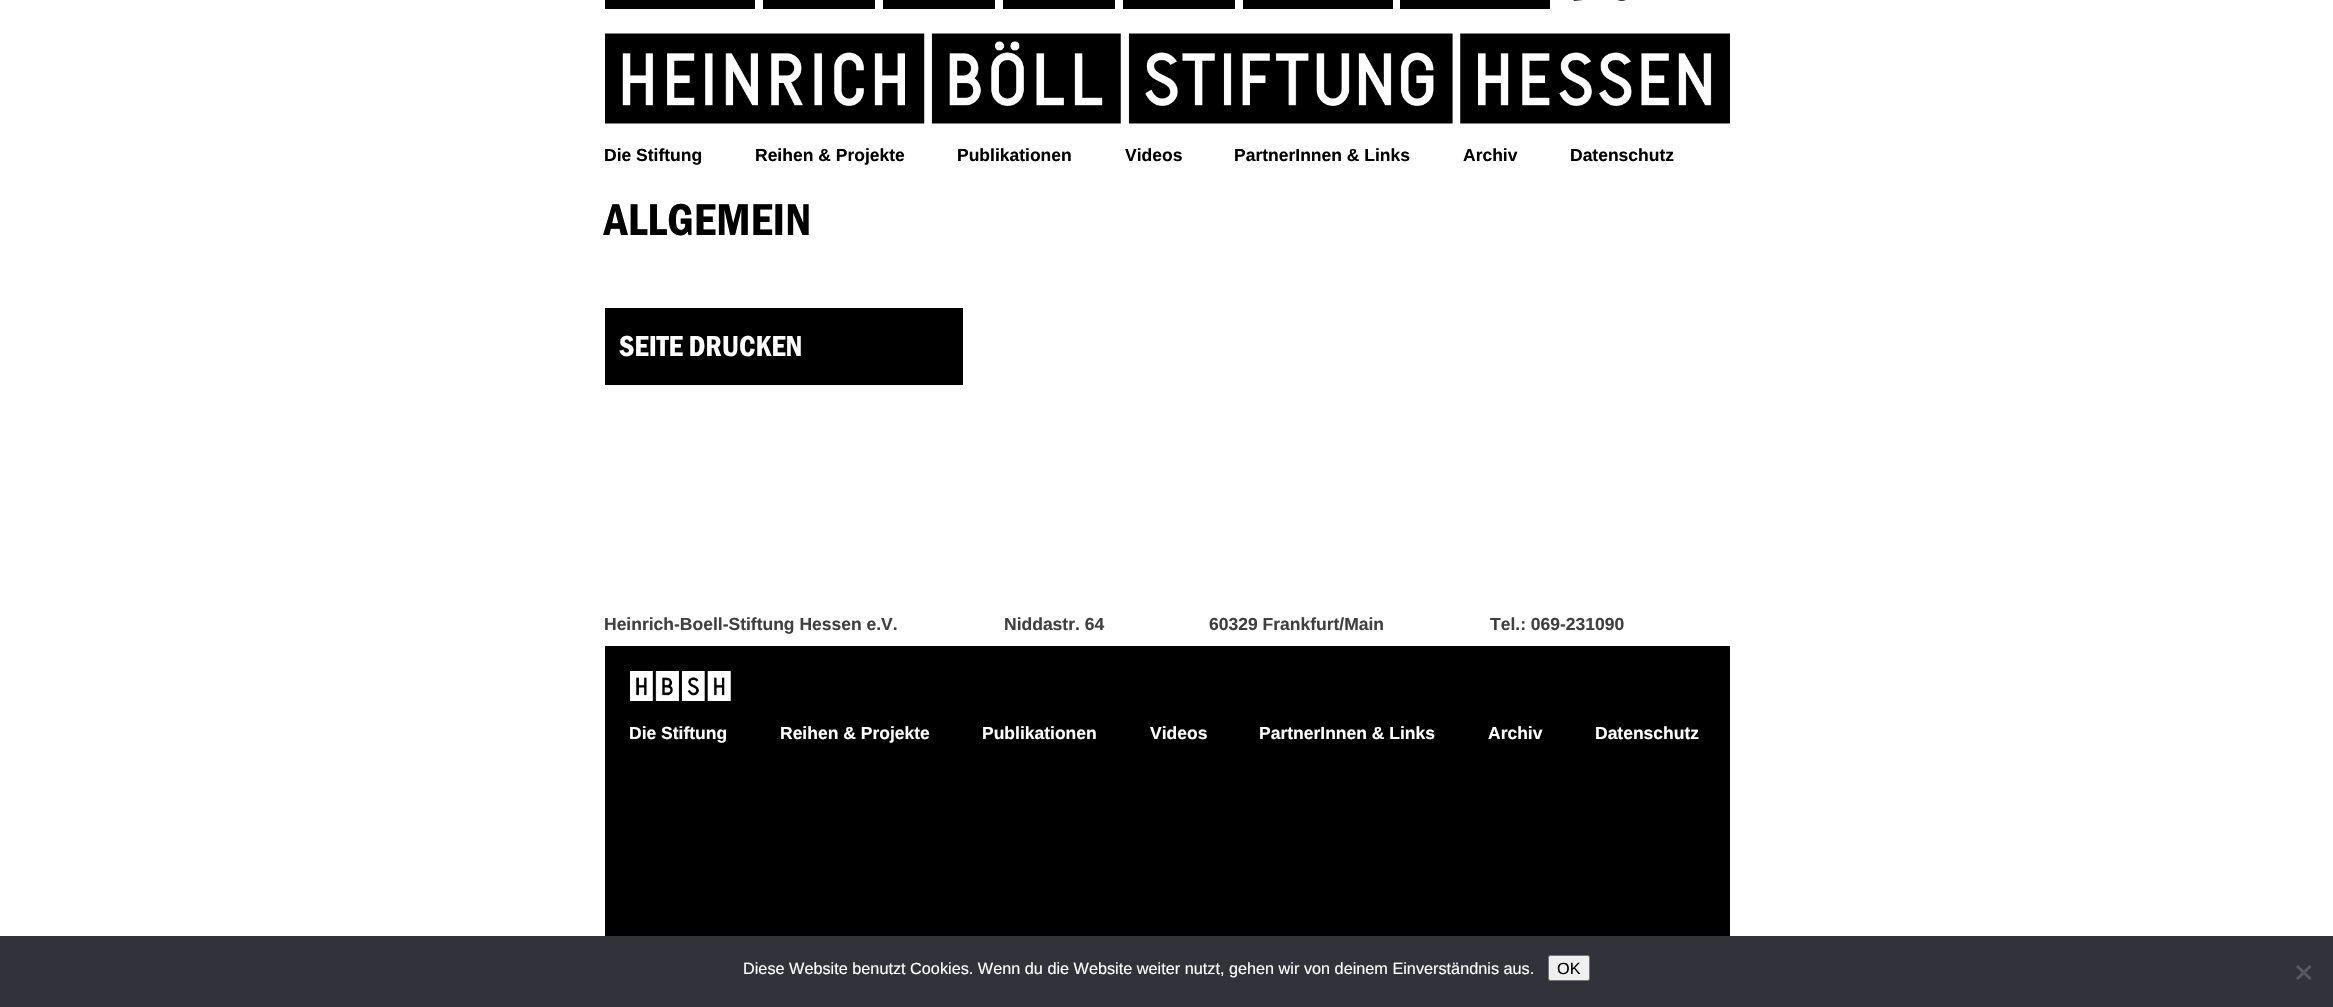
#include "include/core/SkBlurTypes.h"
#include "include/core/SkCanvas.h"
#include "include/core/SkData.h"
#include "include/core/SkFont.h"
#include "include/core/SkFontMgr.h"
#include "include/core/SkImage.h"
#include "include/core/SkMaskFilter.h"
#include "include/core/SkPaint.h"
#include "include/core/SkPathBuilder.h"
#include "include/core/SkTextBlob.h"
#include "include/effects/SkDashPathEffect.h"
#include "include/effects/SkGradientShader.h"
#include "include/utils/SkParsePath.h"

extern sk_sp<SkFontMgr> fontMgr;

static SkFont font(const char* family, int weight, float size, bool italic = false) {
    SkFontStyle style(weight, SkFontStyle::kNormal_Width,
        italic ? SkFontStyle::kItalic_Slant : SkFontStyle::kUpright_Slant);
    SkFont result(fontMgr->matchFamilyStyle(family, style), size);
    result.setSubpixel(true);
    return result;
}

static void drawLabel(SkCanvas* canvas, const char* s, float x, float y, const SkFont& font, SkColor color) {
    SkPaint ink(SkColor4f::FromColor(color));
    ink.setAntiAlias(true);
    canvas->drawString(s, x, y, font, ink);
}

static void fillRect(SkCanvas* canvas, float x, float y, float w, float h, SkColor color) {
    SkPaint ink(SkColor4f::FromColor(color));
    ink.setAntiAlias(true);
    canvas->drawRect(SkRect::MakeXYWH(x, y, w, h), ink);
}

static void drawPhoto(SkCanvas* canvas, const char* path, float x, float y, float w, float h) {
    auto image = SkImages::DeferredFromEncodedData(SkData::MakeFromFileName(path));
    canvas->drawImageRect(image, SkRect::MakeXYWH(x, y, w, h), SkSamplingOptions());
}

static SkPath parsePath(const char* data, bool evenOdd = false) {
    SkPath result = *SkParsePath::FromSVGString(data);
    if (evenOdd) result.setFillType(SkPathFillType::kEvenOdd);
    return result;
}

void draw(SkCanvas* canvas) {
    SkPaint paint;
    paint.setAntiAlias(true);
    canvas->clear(0xFFFFFFFF);
    fillRect(canvas, 605, 0, 150, 9, 0xFF000000);
    fillRect(canvas, 763, 0, 112, 9, 0xFF000000);
    fillRect(canvas, 883, 0, 112, 9, 0xFF000000);
    fillRect(canvas, 1003, 0, 112, 9, 0xFF000000);
    fillRect(canvas, 1123, 0, 112, 9, 0xFF000000);
    fillRect(canvas, 1243, 0, 150, 9, 0xFF000000);
    fillRect(canvas, 1400, 0, 150, 9, 0xFF000000);
    drawPhoto(canvas, "assets/img1.png", 1573, 0, 10, 1);
    drawPhoto(canvas, "assets/img2.png", 1617, 0, 9, 1);
    drawPhoto(canvas, "assets/img3.png", 605, 33, 1125, 91);
    SkFont font1 = font("Liberation Sans", 700, 17.5f);
    drawLabel(canvas, "Die Stiftung", 604, 161, font1, 0xFF000000);
    drawLabel(canvas, "Reihen & Projekte", 755, 161, font1, 0xFF000000);
    drawLabel(canvas, "Publikationen", 957, 161, font1, 0xFF000000);
    drawLabel(canvas, "Videos", 1125, 161, font1, 0xFF000000);
    drawLabel(canvas, "PartnerInnen & Links", 1234, 161, font1, 0xFF000000);
    drawLabel(canvas, "Archiv", 1463, 161, font1, 0xFF000000);
    drawLabel(canvas, "Datenschutz", 1570, 161, font1, 0xFF000000);
    SkFont font2 = font("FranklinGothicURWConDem", 400, 46.25f);
    drawLabel(canvas, "ALLGEMEIN", 604, 235, font2, 0xFF000000);
    fillRect(canvas, 605, 308, 358, 77, 0xFF000000);
    SkFont font3 = font("FranklinGothicURWConDem", 400, 30);
    drawLabel(canvas, "SEITE DRUCKEN", 619, 356, font3, 0xFFFFFFFF);
    drawLabel(canvas, "Heinrich-Boell-Stiftung Hessen e.V.", 604, 630, font1, 0xFF404040);
    drawLabel(canvas, "Niddastr. 64", 1004, 630, font1, 0xFF404040);
    drawLabel(canvas, "60329 Frankfurt/Main", 1209, 630, font1, 0xFF404040);
    drawLabel(canvas, "Tel.: 069-231090", 1490, 630, font1, 0xFF404040);
    fillRect(canvas, 605, 646, 1125, 290, 0xFF000000);
    drawPhoto(canvas, "assets/img4.png", 630, 671, 101, 30);
    drawLabel(canvas, "Die Stiftung", 629, 739, font1, 0xFFFFFFFF);
    drawLabel(canvas, "Reihen & Projekte", 780, 739, font1, 0xFFFFFFFF);
    drawLabel(canvas, "Publikationen", 982, 739, font1, 0xFFFFFFFF);
    drawLabel(canvas, "Videos", 1150, 739, font1, 0xFFFFFFFF);
    drawLabel(canvas, "PartnerInnen & Links", 1259, 739, font1, 0xFFFFFFFF);
    drawLabel(canvas, "Archiv", 1488, 739, font1, 0xFFFFFFFF);
    drawLabel(canvas, "Datenschutz", 1595, 739, font1, 0xFFFFFFFF);
    fillRect(canvas, 0, 936, 2333, 71, 0xFF32323A);
    SkFont font4 = font("Liberation Sans", 400, 16.25f);
    drawLabel(canvas, "Diese Website benutzt Cookies. Wenn du die Website weiter nutzt, gehen wir von deinem Einverständnis aus.", 743, 974, font4, 0xFFFFFFFF);
    paint.setColor(0xFFEFEFEF);
    canvas->drawRoundRect(SkRect::MakeXYWH(1548.5f, 955.5f, 41, 25), 2, 2, paint);
    paint.setStroke(true);
    paint.setStrokeWidth(1);
    paint.setColor(0xFF767676);
    canvas->drawRoundRect(SkRect::MakeXYWH(1548.5f, 955.5f, 41, 25), 2, 2, paint);
    drawLabel(canvas, "OK", 1557, 974, font4, 0xFF000000);
    paint.setStroke(false);
    paint.setColor(0xFF59595D);
    canvas->drawPath(parsePath("M2309.5 965L2311.5 967L2298 980L2296 978Z"), paint);
    canvas->drawPath(parsePath("M2296 967L2298 965L2311.5 978L2309.5 980Z"), paint);
}
